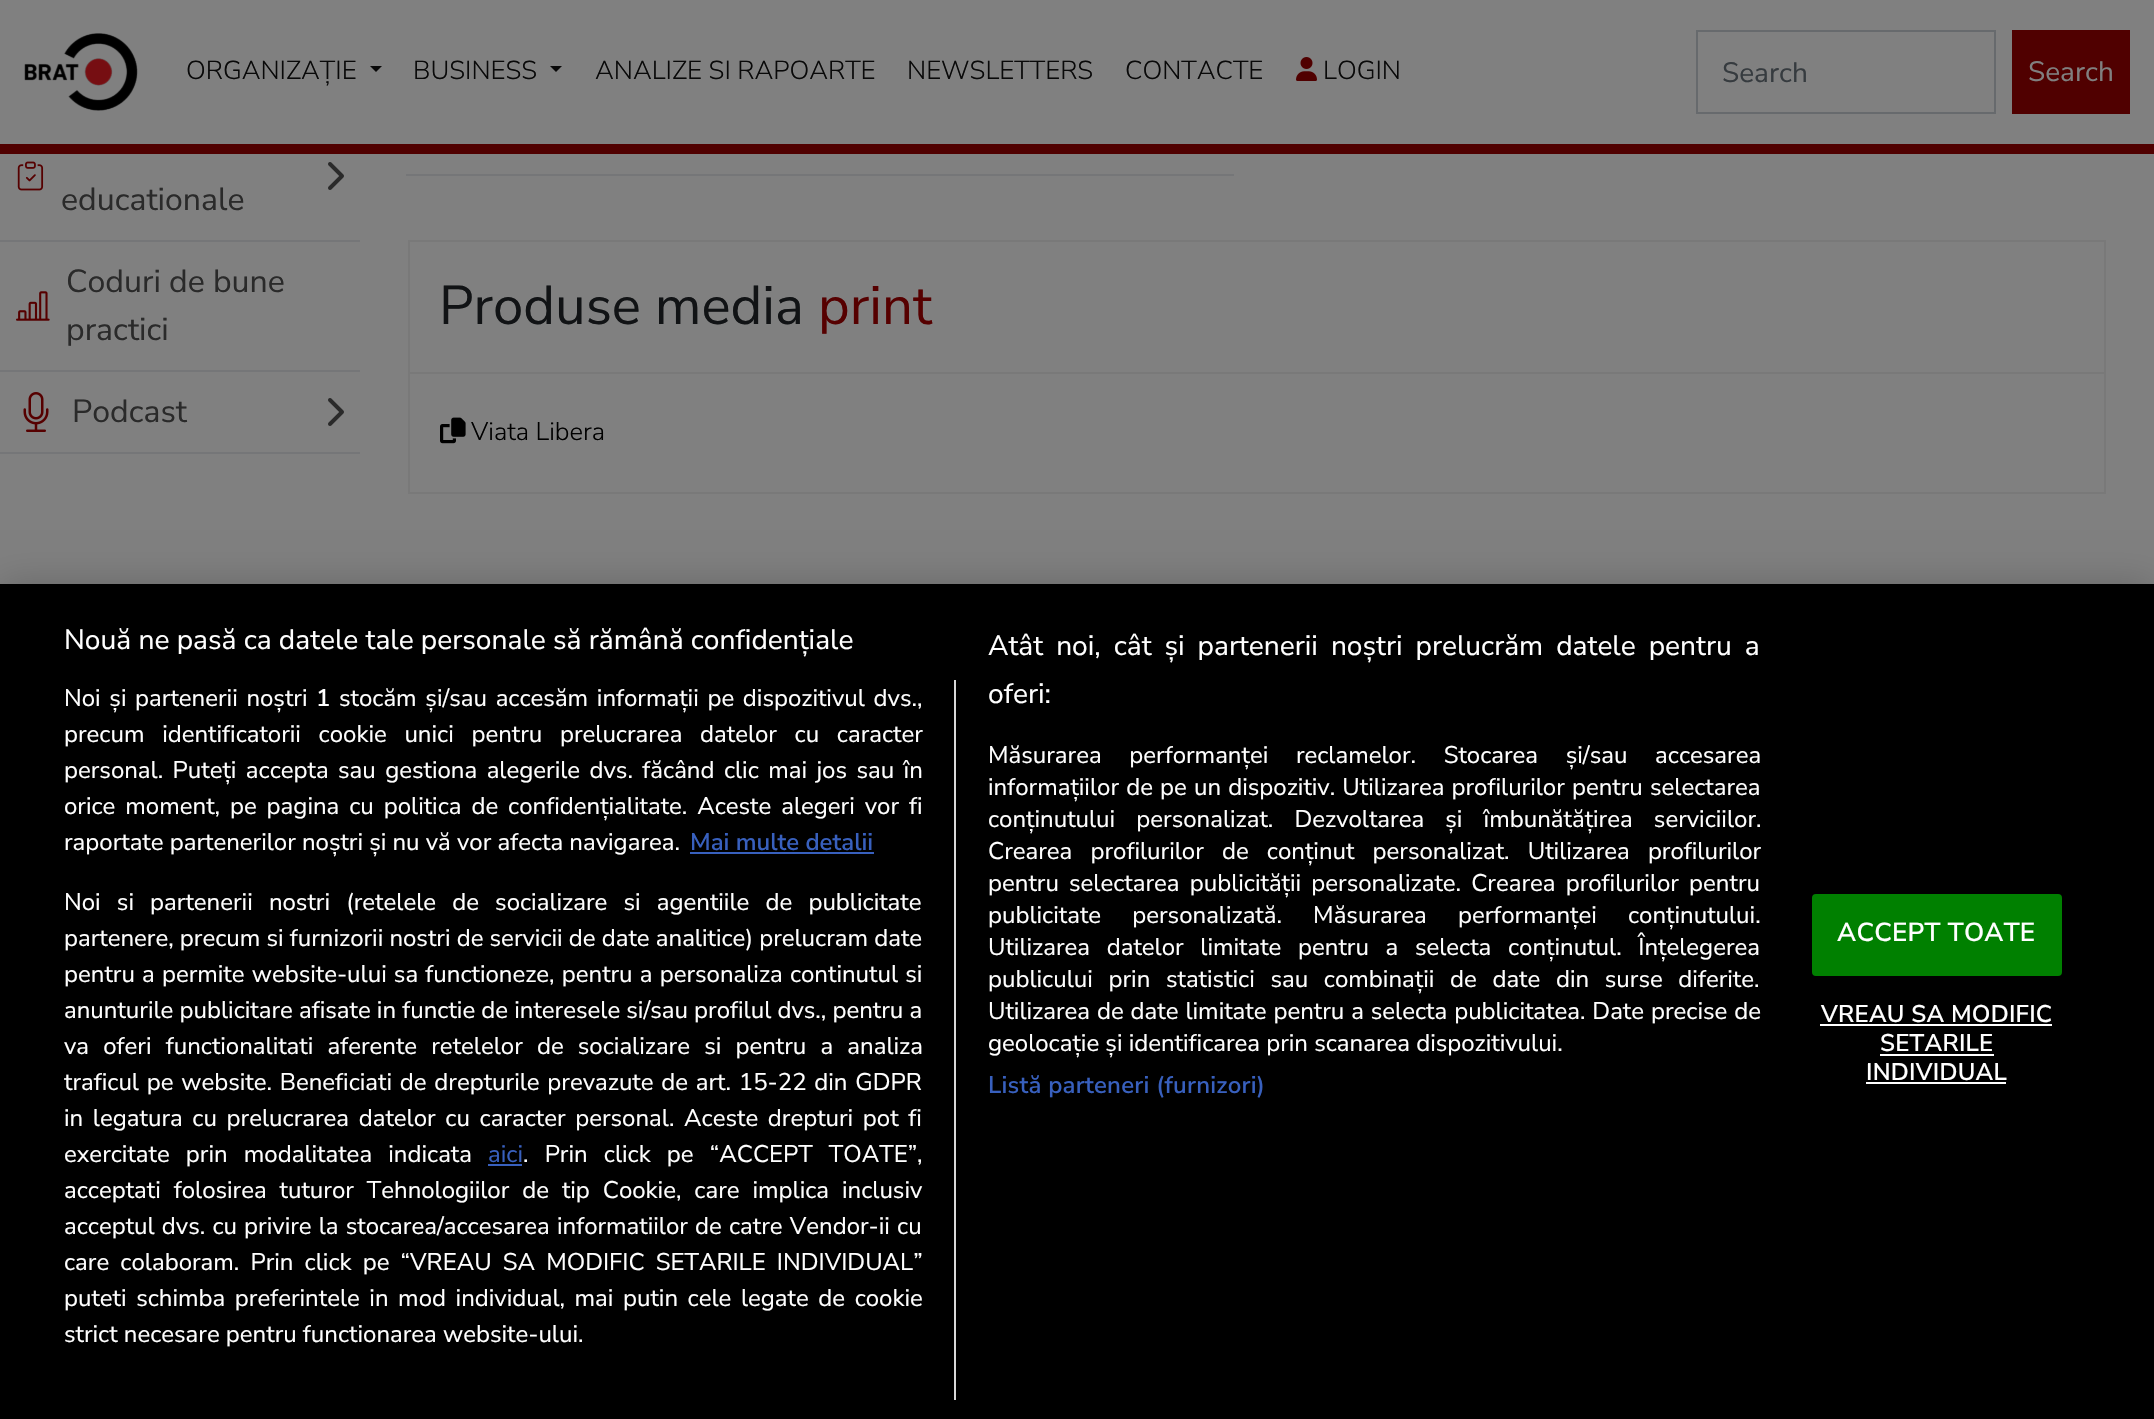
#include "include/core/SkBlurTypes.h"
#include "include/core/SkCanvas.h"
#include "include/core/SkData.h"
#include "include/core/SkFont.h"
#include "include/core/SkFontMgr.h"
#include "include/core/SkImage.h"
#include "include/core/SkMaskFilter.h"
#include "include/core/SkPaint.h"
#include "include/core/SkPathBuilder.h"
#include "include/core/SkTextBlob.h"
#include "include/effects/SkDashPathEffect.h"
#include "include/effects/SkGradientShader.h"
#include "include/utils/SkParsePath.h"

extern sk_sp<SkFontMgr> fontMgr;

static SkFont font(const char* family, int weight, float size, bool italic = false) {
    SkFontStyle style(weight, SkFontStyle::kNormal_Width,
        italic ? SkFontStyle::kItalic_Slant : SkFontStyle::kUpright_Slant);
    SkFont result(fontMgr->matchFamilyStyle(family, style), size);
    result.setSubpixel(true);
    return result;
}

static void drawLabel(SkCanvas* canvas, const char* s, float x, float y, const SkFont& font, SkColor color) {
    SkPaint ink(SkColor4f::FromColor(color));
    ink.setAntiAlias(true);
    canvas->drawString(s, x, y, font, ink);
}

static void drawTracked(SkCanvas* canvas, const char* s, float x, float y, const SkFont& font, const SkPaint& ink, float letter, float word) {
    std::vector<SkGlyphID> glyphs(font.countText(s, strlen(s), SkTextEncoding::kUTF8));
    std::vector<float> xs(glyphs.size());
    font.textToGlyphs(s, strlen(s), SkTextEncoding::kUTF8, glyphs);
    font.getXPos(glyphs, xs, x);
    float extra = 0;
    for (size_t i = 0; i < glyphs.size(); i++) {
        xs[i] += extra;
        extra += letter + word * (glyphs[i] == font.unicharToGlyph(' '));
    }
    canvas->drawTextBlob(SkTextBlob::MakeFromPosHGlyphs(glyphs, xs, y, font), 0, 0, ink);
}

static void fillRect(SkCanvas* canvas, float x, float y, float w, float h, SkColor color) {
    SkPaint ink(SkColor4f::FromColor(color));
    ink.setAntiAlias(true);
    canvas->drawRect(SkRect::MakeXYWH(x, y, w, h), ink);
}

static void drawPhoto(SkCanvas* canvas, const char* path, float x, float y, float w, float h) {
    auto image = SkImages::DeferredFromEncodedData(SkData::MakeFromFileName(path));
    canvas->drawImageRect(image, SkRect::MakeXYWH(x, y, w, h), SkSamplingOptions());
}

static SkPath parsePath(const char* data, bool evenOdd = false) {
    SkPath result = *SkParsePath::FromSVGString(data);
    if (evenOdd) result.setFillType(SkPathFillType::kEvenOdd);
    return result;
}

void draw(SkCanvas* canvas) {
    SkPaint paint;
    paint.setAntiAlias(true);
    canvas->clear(0xFF808080);
    fillRect(canvas, 0, 144, 2154, 10, 0xFF500000);
    drawPhoto(canvas, "assets/img1.png", 24, 33, 114, 78);
    SkFont font1 = font("Nunito Sans", 300, 26);
    drawLabel(canvas, "ORGANIZAȚIE", 186, 79, font1, 0xFF090909);
    paint.setColor(0xFF090909);
    canvas->drawPath(parsePath("M370 66H382L376 72Z"), paint);
    drawLabel(canvas, "BUSINESS", 413, 79, font1, 0xFF090909);
    canvas->drawPath(parsePath("M550 66H562L556 72Z"), paint);
    drawLabel(canvas, "ANALIZE SI RAPOARTE", 595, 79, font1, 0xFF090909);
    drawLabel(canvas, "NEWSLETTERS", 907, 79, font1, 0xFF090909);
    drawLabel(canvas, "CONTACTE", 1125, 79, font1, 0xFF090909);
    drawPhoto(canvas, "assets/img2.png", 1296, 57, 21, 24);
    drawLabel(canvas, "LOGIN", 1323, 79, font1, 0xFF090909);
    paint.setStroke(true);
    paint.setStrokeWidth(2);
    paint.setColor(0xFF676A6D);
    canvas->drawRect(SkRect::MakeXYWH(1697, 31, 298, 82), paint);
    SkFont font2 = font("Nunito Sans", 400, 28);
    drawLabel(canvas, "Search", 1722, 82, font2, 0xFF363B3F);
    fillRect(canvas, 2012, 30, 118, 84, 0xFF500000);
    drawLabel(canvas, "Search", 2028, 81, font2, 0xFF808080);
    fillRect(canvas, 0, 240, 360, 2, 0xFF757678);
    drawPhoto(canvas, "assets/img3.png", 328, 162, 16, 28);
    drawPhoto(canvas, "assets/img4.png", 17, 161, 27, 30);
    SkFont font3 = font("Nunito Sans", 400, 32);
    drawLabel(canvas, "educationale", 61, 210, font3, 0xFF2A2A2A);
    fillRect(canvas, 0, 370, 360, 2, 0xFF757678);
    drawLabel(canvas, "Coduri de bune", 66, 292, font3, 0xFF2A2A2A);
    drawPhoto(canvas, "assets/img5.png", 16, 291, 34, 30);
    drawLabel(canvas, "practici", 66, 340, font3, 0xFF2A2A2A);
    fillRect(canvas, 0, 452, 360, 2, 0xFF757678);
    drawPhoto(canvas, "assets/img6.png", 23, 392, 26, 40);
    drawLabel(canvas, "Podcast", 72, 422, font3, 0xFF2A2A2A);
    drawPhoto(canvas, "assets/img7.png", 328, 398, 16, 28);
    fillRect(canvas, 406, 174, 828, 2, 0xFF757678);
    paint.setColor(0xFF797979);
    canvas->drawRect(SkRect::MakeXYWH(409, 241, 1696, 252), paint);
    fillRect(canvas, 410, 372, 1694, 2, 0xFF797979);
    SkFont font4 = font("Nunito Sans", 400, 54.5f);
    drawLabel(canvas, "Produse media", 439, 324, font4, 0xFF111315);
    drawLabel(canvas, "print", 818, 324, font4, 0xFF560000);
    drawPhoto(canvas, "assets/img8.png", 440, 417, 26, 27);
    SkFont font5 = font("Nunito Sans", 300, 25.5f);
    drawLabel(canvas, "Viata Libera", 471, 440, font5, 0xFF000000);
    paint.setStroke(false);
    paint.setColor(0x33000000);
    paint.setMaskFilter(SkMaskFilter::MakeBlur(kNormal_SkBlurStyle, 18));
    canvas->drawRect(SkRect::MakeXYWH(0, 584, 2154, 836), paint);
    paint.setMaskFilter(nullptr);
    fillRect(canvas, 0, 584, 2154, 835, 0xFF000000);
    SkFont font6 = font("Nunito Sans", 400, 28.15f);
    drawLabel(canvas, "Nouă ne pasă ca datele tale personale să rămână confidențiale", 64, 649, font6, 0xFFFFFFFF);
    paint.setColor(0xFFFFFFFF);
    drawTracked(canvas, "Atât noi, cât și partenerii noștri prelucrăm datele pentru a", 988, 655, font6, paint, 0, 5.75f);
    drawLabel(canvas, "oferi:", 988, 703, font6, 0xFFFFFFFF);
    SkFont font7 = font("Nunito Sans", 400, 24);
    drawTracked(canvas, "Măsurarea performanței reclamelor. Stocarea și/sau accesarea", 988, 763, font7, paint, 0, 21.5f);
    drawTracked(canvas, "informațiilor de pe un dispozitiv. Utilizarea profilurilor pentru selectarea", 988, 795, font7, paint, 0, 1);
    drawTracked(canvas, "conținutului personalizat. Dezvoltarea și îmbunătățirea serviciilor.", 988, 827, font7, paint, 0, 15);
    drawTracked(canvas, "Crearea profilurilor de conținut personalizat. Utilizarea profilurilor", 988, 859, font7, paint, 0, 12);
    drawTracked(canvas, "pentru selectarea publicității personalizate. Crearea profilurilor pentru", 988, 891, font7, paint, 0, 4);
    drawTracked(canvas, "publicitate personalizată. Măsurarea performanței conținutului.", 988, 923, font7, paint, 0, 25);
    drawTracked(canvas, "Utilizarea datelor limitate pentru a selecta conținutul. Înțelegerea", 988, 955, font7, paint, 0, 10.5f);
    drawTracked(canvas, "publicului prin statistici sau combinații de date din surse diferite.", 988, 987, font7, paint, 0, 9.5f);
    drawTracked(canvas, "Utilizarea de date limitate pentru a selecta publicitatea. Date precise de", 988, 1019, font7, paint, 0, 0.75f);
    drawLabel(canvas, "geolocație și identificarea prin scanarea dispozitivului.", 988, 1051, font7, 0xFFFFFFFF);
    SkFont font8 = font("Nunito Sans", 600, 24);
    paint.setColor(0xFF3860BE);
    drawTracked(canvas, "Listă parteneri (furnizori)", 988, 1093, font8, paint, 0.25f, 0);
    fillRect(canvas, 954, 680, 2, 720, 0xFFD8D8D8);
    paint.setColor(0xFFFFFFFF);
    drawTracked(canvas, "Noi și partenerii noștri", 64, 706, font7, paint, 0, 2.5f);
    drawLabel(canvas, "1", 316, 706, font8, 0xFFFFFFFF);
    drawTracked(canvas, "stocăm și/sau accesăm informații pe dispozitivul dvs.,", 339, 706, font7, paint, 0, 2.5f);
    drawTracked(canvas, "precum identificatorii cookie unici pentru prelucrarea datelor cu caracter", 64, 742, font7, paint, 0, 11.5f);
    drawTracked(canvas, "personal. Puteți accepta sau gestiona alegerile dvs. făcând clic mai jos sau în", 64, 778, font7, paint, 0, 3.25f);
    drawTracked(canvas, "orice moment, pe pagina cu politica de confidențialitate. Aceste alegeri vor fi", 64, 814, font7, paint, 0, 3.75f);
    drawLabel(canvas, "raportate partenerilor noștri și nu vă vor afecta navigarea.", 64, 850, font7, 0xFFFFFFFF);
    drawLabel(canvas, "Mai multe detalii", 690, 850, font8, 0xFF3860BE);
    fillRect(canvas, 690, 852, 184, 2, 0xFF3860BE);
    drawTracked(canvas, "Noi si partenerii nostri (retelele de socializare si agentiile de publicitate", 64, 910, font7, paint, 0, 10);
    drawLabel(canvas, "partenere, precum si furnizorii nostri de servicii de date analitice) prelucram date", 64, 946, font7, 0xFFFFFFFF);
    drawTracked(canvas, "pentru a permite website-ului sa functioneze, pentru a personaliza continutul si", 64, 982, font7, paint, 0, 1);
    drawLabel(canvas, "anunturile publicitare afisate in functie de interesele si/sau profilul dvs., pentru a", 64, 1018, font7, 0xFFFFFFFF);
    drawTracked(canvas, "va oferi functionalitati aferente retelelor de socializare si pentru a analiza", 64, 1054, font7, paint, 0, 8);
    drawTracked(canvas, "traficul pe website. Beneficiati de drepturile prevazute de art. 15-22 din GDPR", 64, 1090, font7, paint, 0, 1.6f);
    drawTracked(canvas, "in legatura cu prelucrarea datelor cu caracter personal. Aceste drepturi pot fi", 64, 1126, font7, paint, 0, 3.5f);
    drawTracked(canvas, "exercitate prin modalitatea indicata", 64, 1162, font7, paint, 0, 10);
    drawLabel(canvas, "aici", 488, 1162, font7, 0xFF3860BE);
    fillRect(canvas, 488, 1164, 34, 2, 0xFF3860BE);
    drawTracked(canvas, ". Prin click pe “ACCEPT TOATE”,", 523, 1162, font7, paint, 0, 10);
    drawTracked(canvas, "acceptati folosirea tuturor Tehnologiilor de tip Cookie, care implica inclusiv", 64, 1198, font7, paint, 0, 6.75f);
    drawTracked(canvas, "acceptul dvs. cu privire la stocarea/accesarea informatiilor de catre Vendor-ii cu", 64, 1234, font7, paint, 0, 1);
    drawTracked(canvas, "care colaboram. Prin click pe “VREAU SA MODIFIC SETARILE INDIVIDUAL”", 64, 1270, font7, paint, 0, 5);
    drawTracked(canvas, "puteti schimba preferintele in mod individual, mai putin cele legate de cookie", 64, 1306, font7, paint, 0, 3.4f);
    drawLabel(canvas, "strict necesare pentru functionarea website-ului.", 64, 1342, font7, 0xFFFFFFFF);
    paint.setColor(0xFF008000);
    canvas->drawRoundRect(SkRect::MakeXYWH(1813, 895, 248, 80), 3, 3, paint);
    paint.setStroke(true);
    canvas->drawRoundRect(SkRect::MakeXYWH(1813, 895, 248, 80), 3, 3, paint);
    SkFont font9 = font("Nunito Sans", 600, 26);
    paint.setStroke(false);
    paint.setColor(0xFFFFFFFF);
    drawTracked(canvas, "ACCEPT TOATE", 1837, 941, font9, paint, 0.25f, 0);
    drawTracked(canvas, "VREAU SA MODIFIC", 1821, 1022, font8, paint, 0.25f, 0);
    fillRect(canvas, 1820, 1024, 232, 2, 0xFFFFFFFF);
    drawTracked(canvas, "SETARILE", 1880, 1051, font8, paint, 0.25f, 0);
    fillRect(canvas, 1880, 1054, 114, 2, 0xFFFFFFFF);
    drawTracked(canvas, "INDIVIDUAL", 1866, 1080, font8, paint, 0.25f, 0);
    fillRect(canvas, 1866, 1082, 140, 2, 0xFFFFFFFF);
}
